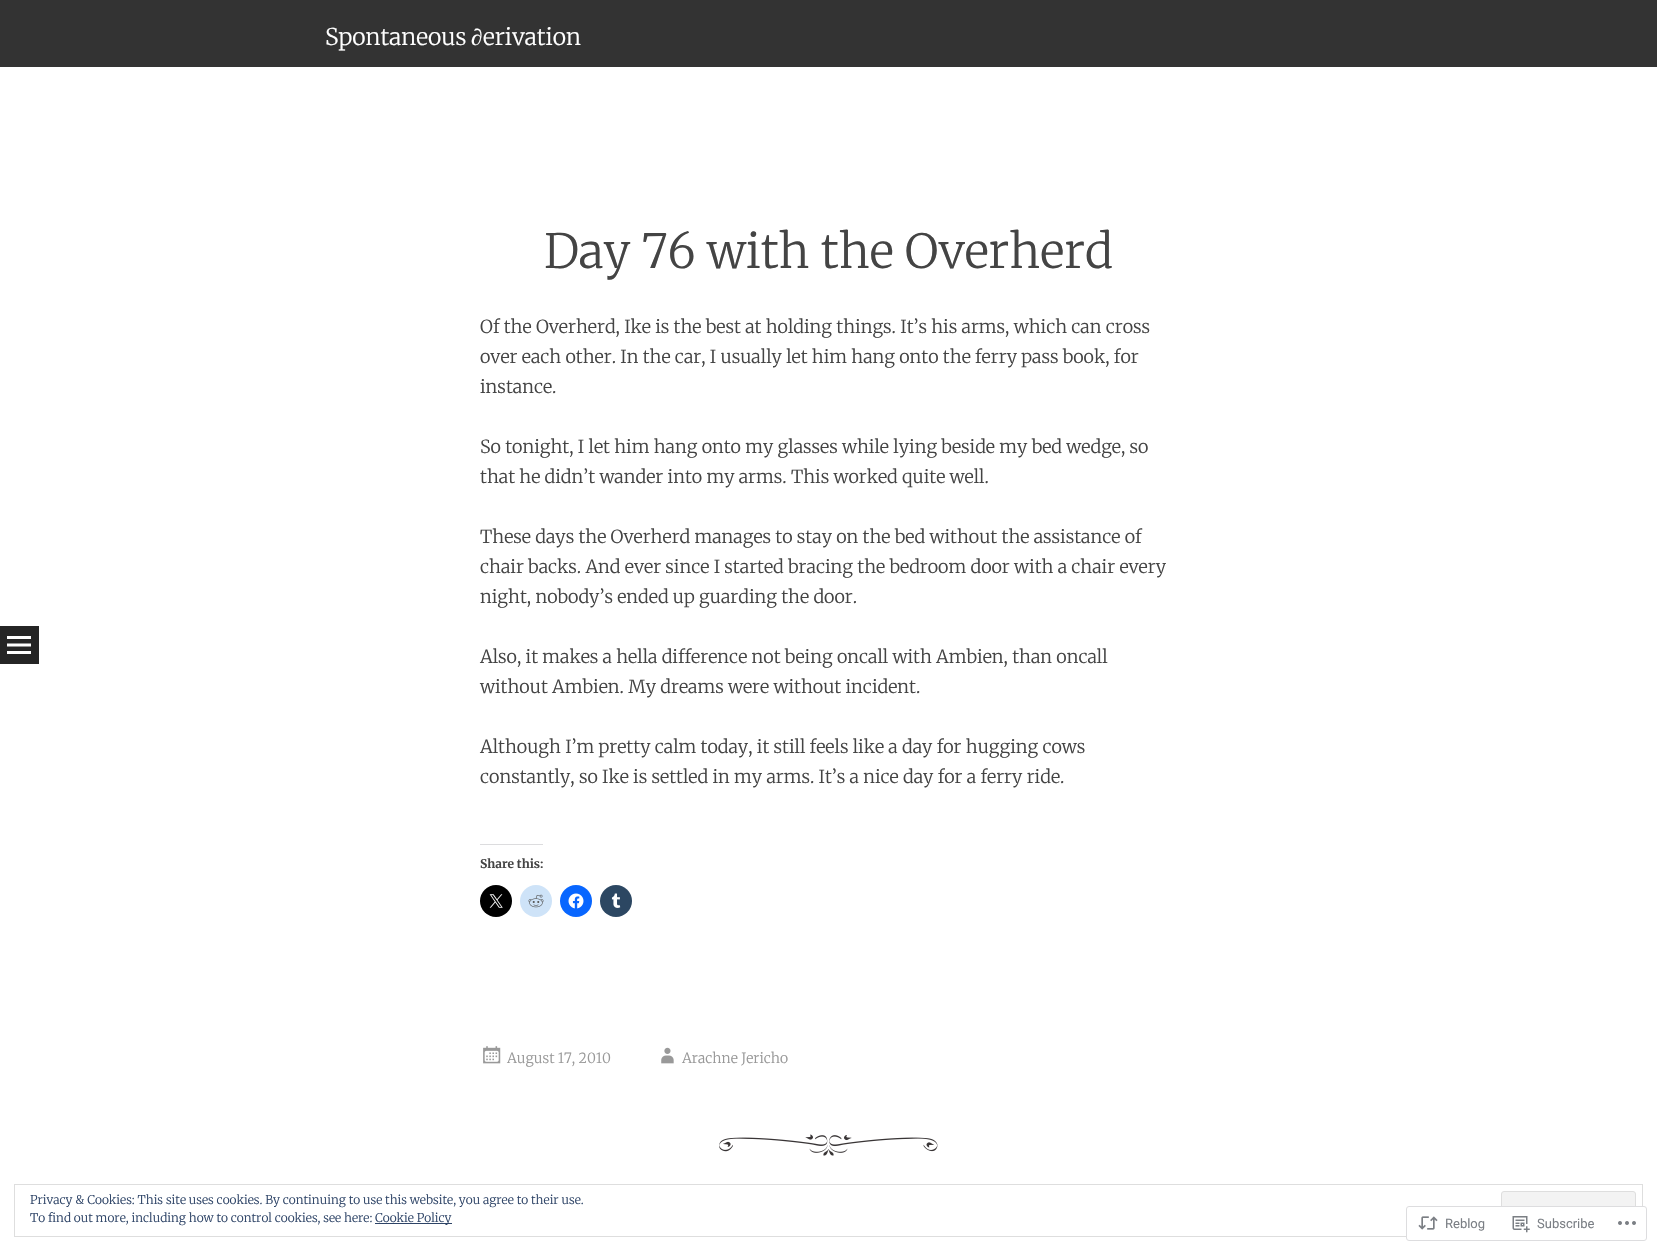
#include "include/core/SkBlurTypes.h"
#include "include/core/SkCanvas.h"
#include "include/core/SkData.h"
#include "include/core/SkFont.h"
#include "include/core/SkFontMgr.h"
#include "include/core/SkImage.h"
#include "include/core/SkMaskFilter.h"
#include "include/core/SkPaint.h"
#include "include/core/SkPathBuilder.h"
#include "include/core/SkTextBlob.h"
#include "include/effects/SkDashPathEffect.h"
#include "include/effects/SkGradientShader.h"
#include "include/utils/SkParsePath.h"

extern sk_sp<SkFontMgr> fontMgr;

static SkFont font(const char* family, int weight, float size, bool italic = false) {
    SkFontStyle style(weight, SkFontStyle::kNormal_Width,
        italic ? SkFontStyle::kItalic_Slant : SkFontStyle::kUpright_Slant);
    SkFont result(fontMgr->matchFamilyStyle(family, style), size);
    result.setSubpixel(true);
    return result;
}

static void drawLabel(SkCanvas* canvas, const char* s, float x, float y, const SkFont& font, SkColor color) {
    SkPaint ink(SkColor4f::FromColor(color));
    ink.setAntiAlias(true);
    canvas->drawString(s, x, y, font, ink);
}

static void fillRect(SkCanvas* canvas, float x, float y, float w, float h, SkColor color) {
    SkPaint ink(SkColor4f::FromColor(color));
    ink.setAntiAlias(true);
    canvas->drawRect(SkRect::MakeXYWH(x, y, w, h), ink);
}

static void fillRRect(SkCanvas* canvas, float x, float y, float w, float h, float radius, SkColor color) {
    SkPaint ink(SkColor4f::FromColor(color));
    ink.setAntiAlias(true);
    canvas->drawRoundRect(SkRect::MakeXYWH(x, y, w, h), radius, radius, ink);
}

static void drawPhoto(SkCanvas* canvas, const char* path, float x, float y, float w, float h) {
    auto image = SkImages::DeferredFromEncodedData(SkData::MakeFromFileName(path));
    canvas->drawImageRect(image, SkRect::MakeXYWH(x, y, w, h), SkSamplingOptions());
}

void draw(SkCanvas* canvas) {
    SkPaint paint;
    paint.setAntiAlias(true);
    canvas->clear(0xFFFFFFFF);
    fillRect(canvas, 0, 0, 1657, 67, 0xFF333333);
    SkFont font1 = font("Merriweather", 300, 23);
    drawLabel(canvas, "Spontaneous", 325, 45, font1, 0xFFFFFFFF);
    SkFont font2 = font("Liberation Serif", 400, 23);
    drawLabel(canvas, "∂", 471, 45, font2, 0xFFFFFFFF);
    drawLabel(canvas, "erivation", 483, 45, font1, 0xFFFFFFFF);
    fillRect(canvas, 0, 626, 39, 38, 0xFF252525);
    drawPhoto(canvas, "assets/img1.png", 7, 636, 24, 18);
    SkFont font3 = font("Merriweather", 300, 47);
    drawLabel(canvas, "Day 76 with the Overherd", 544, 268, font3, 0xFF444444);
    SkFont font4 = font("Merriweather", 300, 18);
    drawLabel(canvas, "Of the Overherd, Ike is the best at holding things. It’s his arms, which can cross", 480, 333, font4, 0xFF444444);
    drawLabel(canvas, "over each other. In the car, I usually let him hang onto the ferry pass book, for", 480, 363, font4, 0xFF444444);
    drawLabel(canvas, "instance.", 480, 393, font4, 0xFF444444);
    drawLabel(canvas, "So tonight, I let him hang onto my glasses while lying beside my bed wedge, so", 480, 453, font4, 0xFF444444);
    drawLabel(canvas, "that he didn’t wander into my arms. This worked quite well.", 480, 483, font4, 0xFF444444);
    drawLabel(canvas, "These days the Overherd manages to stay on the bed without the assistance of", 480, 543, font4, 0xFF444444);
    drawLabel(canvas, "chair backs. And ever since I started bracing the bedroom door with a chair every", 480, 573, font4, 0xFF444444);
    drawLabel(canvas, "night, nobody’s ended up guarding the door.", 480, 603, font4, 0xFF444444);
    drawLabel(canvas, "Also, it makes a hella difference not being oncall with Ambien, than oncall", 480, 663, font4, 0xFF444444);
    drawLabel(canvas, "without Ambien. My dreams were without incident.", 480, 693, font4, 0xFF444444);
    drawLabel(canvas, "Although I’m pretty calm today, it still feels like a day for hugging cows", 480, 753, font4, 0xFF444444);
    drawLabel(canvas, "constantly, so Ike is settled in my arms. It’s a nice day for a ferry ride.", 480, 783, font4, 0xFF444444);
    fillRect(canvas, 480, 844, 63, 1, 0xFFDCDCDE);
    SkFont font5 = font("Merriweather", 700, 12);
    drawLabel(canvas, "Share this:", 480, 868, font5, 0xFF444444);
    paint.setColor(0xFF000000);
    canvas->drawCircle(496, 901, 16, paint);
    drawPhoto(canvas, "assets/img2.png", 489, 894, 14, 14);
    paint.setColor(0xFFCEE3F8);
    canvas->drawCircle(536, 901, 16, paint);
    drawPhoto(canvas, "assets/img3.png", 528, 894, 16, 14);
    paint.setColor(0xFF0866FF);
    canvas->drawCircle(576, 901, 16, paint);
    drawPhoto(canvas, "assets/img4.png", 568, 893, 16, 16);
    paint.setColor(0xFF2C4762);
    canvas->drawCircle(616, 901, 16, paint);
    drawPhoto(canvas, "assets/img5.png", 611, 893, 10, 15);
    drawPhoto(canvas, "assets/img6.png", 483, 1046, 18, 18);
    SkFont font6 = font("Merriweather", 300, 14);
    drawLabel(canvas, "August 17, 2010", 507, 1063, font6, 0xFF999999);
    drawPhoto(canvas, "assets/img7.png", 661, 1047, 13, 17);
    drawLabel(canvas, "Arachne Jericho", 682, 1063, font6, 0xFF999999);
    drawPhoto(canvas, "assets/img8.png", 719, 1134, 219, 22);
    paint.setStroke(true);
    paint.setStrokeWidth(1);
    paint.setColor(0xFFDEDEDE);
    canvas->drawRect(SkRect::MakeXYWH(14.5f, 1184.5f, 1628, 52), paint);
    SkFont font7 = font("Merriweather", 300, 12);
    drawLabel(canvas, "Privacy & Cookies: This site uses cookies. By continuing to use this website, you agree to their use.", 30, 1204, font7, 0xFF2E4467);
    paint.setStroke(false);
    paint.setColor(0xFFF3F3F3);
    canvas->drawRoundRect(SkRect::MakeXYWH(1501.5f, 1191.5f, 134, 38), 2.5f, 2.5f, paint);
    paint.setStroke(true);
    paint.setColor(0xFFDEDEDE);
    canvas->drawRoundRect(SkRect::MakeXYWH(1501.5f, 1191.5f, 134, 38), 2.5f, 2.5f, paint);
    drawLabel(canvas, "To find out more, including how to control cookies, see here:", 30, 1222, font7, 0xFF2E4467);
    fillRect(canvas, 375, 1223, 77, 1, 0xFF2E4467);
    drawLabel(canvas, "Cookie Policy", 375, 1222, font7, 0xFF2E4467);
    fillRRect(canvas, 1406, 1206, 241, 35, 3, 0xFAFFFFFF);
    paint.setColor(0xFADCDCDE);
    canvas->drawRoundRect(SkRect::MakeXYWH(1406.5f, 1206.5f, 240, 34), 2.5f, 2.5f, paint);
    drawPhoto(canvas, "assets/img9.png", 1418, 1216, 20, 14);
    SkFont font8 = font("Roboto", 400, 13);
    drawLabel(canvas, "Reblog", 1445, 1228, font8, 0xFF7B7F85);
    drawPhoto(canvas, "assets/img10.png", 1512, 1216, 18, 17);
    drawLabel(canvas, "Subscribe", 1537, 1228, font8, 0xFF7B7F85);
    drawPhoto(canvas, "assets/img11.png", 1618, 1221, 18, 4);
}
